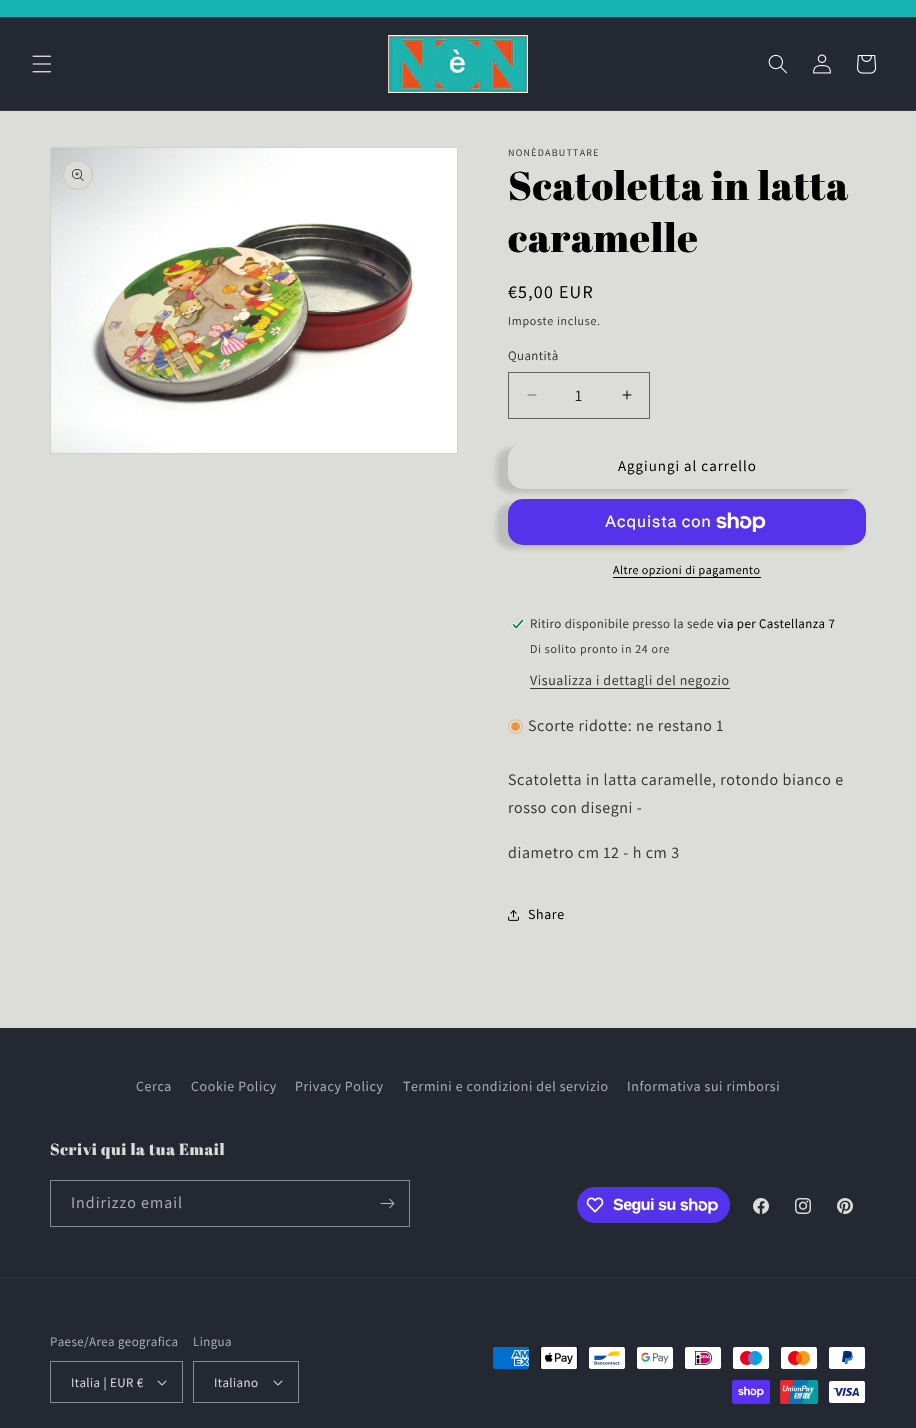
#include "include/core/SkBlurTypes.h"
#include "include/core/SkCanvas.h"
#include "include/core/SkData.h"
#include "include/core/SkFont.h"
#include "include/core/SkFontMgr.h"
#include "include/core/SkImage.h"
#include "include/core/SkMaskFilter.h"
#include "include/core/SkPaint.h"
#include "include/core/SkPathBuilder.h"
#include "include/core/SkTextBlob.h"
#include "include/effects/SkDashPathEffect.h"
#include "include/effects/SkGradientShader.h"
#include "include/utils/SkParsePath.h"

extern sk_sp<SkFontMgr> fontMgr;

static SkFont font(const char* family, int weight, float size, bool italic = false) {
    SkFontStyle style(weight, SkFontStyle::kNormal_Width,
        italic ? SkFontStyle::kItalic_Slant : SkFontStyle::kUpright_Slant);
    SkFont result(fontMgr->matchFamilyStyle(family, style), size);
    result.setSubpixel(true);
    return result;
}

static void drawLabel(SkCanvas* canvas, const char* s, float x, float y, const SkFont& font, SkColor color) {
    SkPaint ink(SkColor4f::FromColor(color));
    ink.setAntiAlias(true);
    canvas->drawString(s, x, y, font, ink);
}

static void drawTracked(SkCanvas* canvas, const char* s, float x, float y, const SkFont& font, const SkPaint& ink, float letter, float word) {
    std::vector<SkGlyphID> glyphs(font.countText(s, strlen(s), SkTextEncoding::kUTF8));
    std::vector<float> xs(glyphs.size());
    font.textToGlyphs(s, strlen(s), SkTextEncoding::kUTF8, glyphs);
    font.getXPos(glyphs, xs, x);
    float extra = 0;
    for (size_t i = 0; i < glyphs.size(); i++) {
        xs[i] += extra;
        extra += letter + word * (glyphs[i] == font.unicharToGlyph(' '));
    }
    canvas->drawTextBlob(SkTextBlob::MakeFromPosHGlyphs(glyphs, xs, y, font), 0, 0, ink);
}

static void fillRect(SkCanvas* canvas, float x, float y, float w, float h, SkColor color) {
    SkPaint ink(SkColor4f::FromColor(color));
    ink.setAntiAlias(true);
    canvas->drawRect(SkRect::MakeXYWH(x, y, w, h), ink);
}

static void fillRRect(SkCanvas* canvas, float x, float y, float w, float h, float radius, SkColor color) {
    SkPaint ink(SkColor4f::FromColor(color));
    ink.setAntiAlias(true);
    canvas->drawRoundRect(SkRect::MakeXYWH(x, y, w, h), radius, radius, ink);
}

static void drawPhoto(SkCanvas* canvas, const char* path, float x, float y, float w, float h) {
    auto image = SkImages::DeferredFromEncodedData(SkData::MakeFromFileName(path));
    canvas->drawImageRect(image, SkRect::MakeXYWH(x, y, w, h), SkSamplingOptions());
}

void draw(SkCanvas* canvas) {
    SkPaint paint;
    paint.setAntiAlias(true);
    canvas->clear(0xFFDCDCD8);
    fillRect(canvas, 0, 0, 916, 17, 0xFF18B3B3);
    fillRect(canvas, 0, 17, 916, 93, 0xFF242833);
    fillRect(canvas, 0, 110, 916, 1, 0xFF363943);
    drawPhoto(canvas, "assets/img1.png", 32, 55, 20, 18);
    drawPhoto(canvas, "assets/img2.png", 388, 35, 140, 58);
    drawPhoto(canvas, "assets/img3.png", 768, 54, 19, 20);
    drawPhoto(canvas, "assets/img4.png", 813, 54, 18, 20);
    drawPhoto(canvas, "assets/img5.png", 857, 55, 20, 19);
    paint.setStroke(true);
    paint.setStrokeWidth(1);
    paint.setColor(0xFFD1D1CD);
    canvas->drawRect(SkRect::MakeXYWH(50.5f, 147.5f, 407, 306), paint);
    drawPhoto(canvas, "assets/img6.png", 51, 148, 406, 305);
    paint.setStroke(false);
    paint.setColor(0xFFDCDCD8);
    canvas->drawCircle(78, 175, 15, paint);
    paint.setStroke(true);
    paint.setColor(0x1A000000);
    canvas->drawCircle(78, 175, 14.5f, paint);
    drawPhoto(canvas, "assets/img7.png", 72, 169, 12, 12);
    SkFont font1 = font("Assistant", 400, 10);
    paint.setStroke(false);
    paint.setColor(0xFF373736);
    drawTracked(canvas, "NONÈDABUTTARE", 508, 156, font1, paint, 1.25f, 0);
    SkFont font2 = font("Abril Fatface", 400, 40);
    paint.setColor(0xFF000000);
    drawTracked(canvas, "Scatoletta in latta", 508, 200, font2, paint, 0.6f, 0);
    drawTracked(canvas, "caramelle", 508, 252, font2, paint, 0.6f, 0);
    SkFont font3 = font("Assistant", 400, 18);
    drawTracked(canvas, "€5,00 EUR", 508, 298, font3, paint, 1.25f, 0);
    SkFont font4 = font("Assistant", 400, 12);
    paint.setColor(0xFF373736);
    drawTracked(canvas, "Imposte incluse.", 508, 325, font4, paint, 0.7f, 0);
    SkFont font5 = font("Assistant", 400, 13);
    drawTracked(canvas, "Quantità", 508, 360, font5, paint, 0.4f, 0);
    drawPhoto(canvas, "assets/img8.png", 527, 394, 10, 2);
    drawPhoto(canvas, "assets/img9.png", 622, 390, 10, 10);
    paint.setStroke(true);
    paint.setColor(0xFF636361);
    canvas->drawRect(SkRect::MakeXYWH(508.5f, 372.5f, 141, 46), paint);
    SkFont font6 = font("Assistant", 400, 16);
    drawLabel(canvas, "1", 575, 401, font6, 0xFF212120);
    paint.setStroke(false);
    paint.setColor(0x26121212);
    paint.setMaskFilter(SkMaskFilter::MakeBlur(kNormal_SkBlurStyle, 2.5f));
    canvas->drawRoundRect(SkRect::MakeXYWH(496, 448, 358, 45), 15, 15, paint);
    paint.setMaskFilter(nullptr);
    fillRRect(canvas, 508, 444, 358, 45, 15, 0xFFDCDCD8);
    SkFont font7 = font("Assistant", 400, 15);
    paint.setColor(0xFF000000);
    drawTracked(canvas, "Aggiungi al carrello", 618, 471, font7, paint, 1, 0);
    paint.setColor(0x26121212);
    paint.setMaskFilter(SkMaskFilter::MakeBlur(kNormal_SkBlurStyle, 2.5f));
    canvas->drawRoundRect(SkRect::MakeXYWH(496, 503, 358, 46), 15, 15, paint);
    paint.setMaskFilter(nullptr);
    fillRRect(canvas, 508, 499, 358, 46, 15, 0xFF5433EB);
    SkFont font8 = font("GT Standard", 400, 16);
    paint.setColor(0xFFFFFFFF);
    drawTracked(canvas, "Acquista con", 605, 527, font8, paint, 0.6f, 0);
    drawPhoto(canvas, "assets/img10.png", 716, 512, 50, 20);
    paint.setColor(0xFF000000);
    drawTracked(canvas, "Altre opzioni di pagamento", 613, 574, font4, paint, 0.5f, 0);
    fillRect(canvas, 613, 577, 148, 1, 0xFF000000);
    drawPhoto(canvas, "assets/img11.png", 511, 618, 14, 12);
    paint.setColor(0xFF373736);
    drawTracked(canvas, "Ritiro disponibile presso la sede", 530, 628, font5, paint, 0.4f, 0);
    paint.setColor(0xFF000000);
    drawTracked(canvas, "via per Castellanza 7", 717, 628, font5, paint, 0.4f, 0);
    paint.setColor(0xFF373736);
    drawTracked(canvas, "Di solito pronto in 24 ore", 530, 653, font4, paint, 0.7f, 0);
    fillRect(canvas, 530, 688, 200, 1, 0xFF373736);
    SkFont font9 = font("Assistant", 400, 14);
    drawTracked(canvas, "Visualizza i dettagli del negozio", 530, 685, font9, paint, 0.6f, 0);
    paint.setColor(0xFFE1C6AB);
    canvas->drawCircle(515.5f, 726.5f, 7.5f, paint);
    paint.setColor(0xFFEE9441);
    canvas->drawCircle(515.5f, 726.5f, 5, paint);
    paint.setStroke(true);
    paint.setColor(0xFFFFFFFF);
    canvas->drawCircle(515.5f, 726.5f, 5, paint);
    paint.setStroke(false);
    paint.setColor(0xFF373736);
    drawTracked(canvas, "Scorte ridotte: ne restano 1", 528, 731, font6, paint, 0.6f, 0);
    drawTracked(canvas, "Scatoletta in latta caramelle, rotondo bianco e", 508, 785, font6, paint, 0.6f, 0);
    drawTracked(canvas, "rosso con disegni -", 508, 813, font6, paint, 0.6f, 0);
    drawTracked(canvas, "diametro cm 12 - h cm 3", 508, 858, font6, paint, 0.6f, 0);
    drawPhoto(canvas, "assets/img12.png", 508, 910, 11, 11);
    paint.setColor(0xFF000000);
    drawTracked(canvas, "Share", 528, 919, font9, paint, 0.6f, 0);
    fillRect(canvas, 0, 1028, 916, 400, 0xFF242833);
    paint.setColor(0xFFAEAFAF);
    drawTracked(canvas, "Cerca", 136, 1091, font9, paint, 0.6f, 0);
    drawTracked(canvas, "Cookie Policy", 191, 1091, font9, paint, 0.6f, 0);
    drawTracked(canvas, "Privacy Policy", 295, 1091, font9, paint, 0.6f, 0);
    drawTracked(canvas, "Termini e condizioni del servizio", 403, 1091, font9, paint, 0.6f, 0);
    drawTracked(canvas, "Informativa sui rimborsi", 627, 1091, font9, paint, 0.6f, 0);
    SkFont font10 = font("Abril Fatface", 400, 16);
    paint.setColor(0xFFDCDCD8);
    drawTracked(canvas, "Scrivi qui la tua Email", 50, 1155, font10, paint, 0.6f, 0);
    paint.setStroke(true);
    paint.setColor(0xFF898B8E);
    canvas->drawRect(SkRect::MakeXYWH(50.5f, 1180.5f, 359, 46), paint);
    paint.setStroke(false);
    paint.setColor(0xFFAEAFAF);
    drawTracked(canvas, "Indirizzo email", 71, 1208, font6, paint, 1, 0);
    drawPhoto(canvas, "assets/img13.png", 380, 1198, 15, 11);
    fillRRect(canvas, 577, 1187, 153, 36, 18, 0xFF5433EB);
    drawPhoto(canvas, "assets/img14.png", 586, 1197, 18, 16);
    SkFont font11 = font("Liberation Sans", 700, 16);
    paint.setColor(0xFFFFFFFF);
    drawTracked(canvas, "Segui su", 613, 1210, font11, paint, -0.5f, 0);
    drawPhoto(canvas, "assets/img15.png", 680, 1198, 38, 16);
    drawPhoto(canvas, "assets/img16.png", 753, 1198, 16, 16);
    drawPhoto(canvas, "assets/img17.png", 795, 1198, 16, 16);
    drawPhoto(canvas, "assets/img18.png", 837, 1198, 16, 16);
    fillRect(canvas, 0, 1277, 916, 1, 0xFF333640);
    paint.setColor(0xFFAEAFAF);
    drawTracked(canvas, "Paese/Area geografica", 50, 1346, font5, paint, 0.4f, 0);
    drawPhoto(canvas, "assets/img19.png", 157, 1380, 10, 6);
    paint.setStroke(true);
    paint.setColor(0xFF898B8E);
    canvas->drawRect(SkRect::MakeXYWH(50.5f, 1361.5f, 132, 41), paint);
    paint.setStroke(false);
    paint.setColor(0xFFDCDCD8);
    drawTracked(canvas, "Italia | EUR €", 71, 1387, font5, paint, 0.4f, 0);
    paint.setColor(0xFFAEAFAF);
    drawTracked(canvas, "Lingua", 193, 1346, font5, paint, 0.4f, 0);
    drawPhoto(canvas, "assets/img19.png", 273, 1380, 10, 6);
    paint.setStroke(true);
    paint.setColor(0xFF898B8E);
    canvas->drawRect(SkRect::MakeXYWH(193.5f, 1361.5f, 105, 41), paint);
    paint.setStroke(false);
    paint.setColor(0xFFDCDCD8);
    drawTracked(canvas, "Italiano", 214, 1387, font5, paint, 0.4f, 0);
    drawPhoto(canvas, "assets/img20.png", 493, 1347, 36, 22);
    drawPhoto(canvas, "assets/img21.png", 540, 1346, 38, 24);
    drawPhoto(canvas, "assets/img22.png", 589, 1347, 36, 22);
    drawPhoto(canvas, "assets/img23.png", 637, 1347, 36, 22);
    drawPhoto(canvas, "assets/img24.png", 685, 1347, 36, 22);
    drawPhoto(canvas, "assets/img25.png", 733, 1347, 36, 22);
    drawPhoto(canvas, "assets/img26.png", 781, 1347, 36, 22);
    drawPhoto(canvas, "assets/img27.png", 829, 1347, 36, 22);
    drawPhoto(canvas, "assets/img28.png", 732, 1380, 38, 24);
    drawPhoto(canvas, "assets/img29.png", 780, 1380, 38, 24);
    drawPhoto(canvas, "assets/img30.png", 829, 1381, 36, 22);
}
